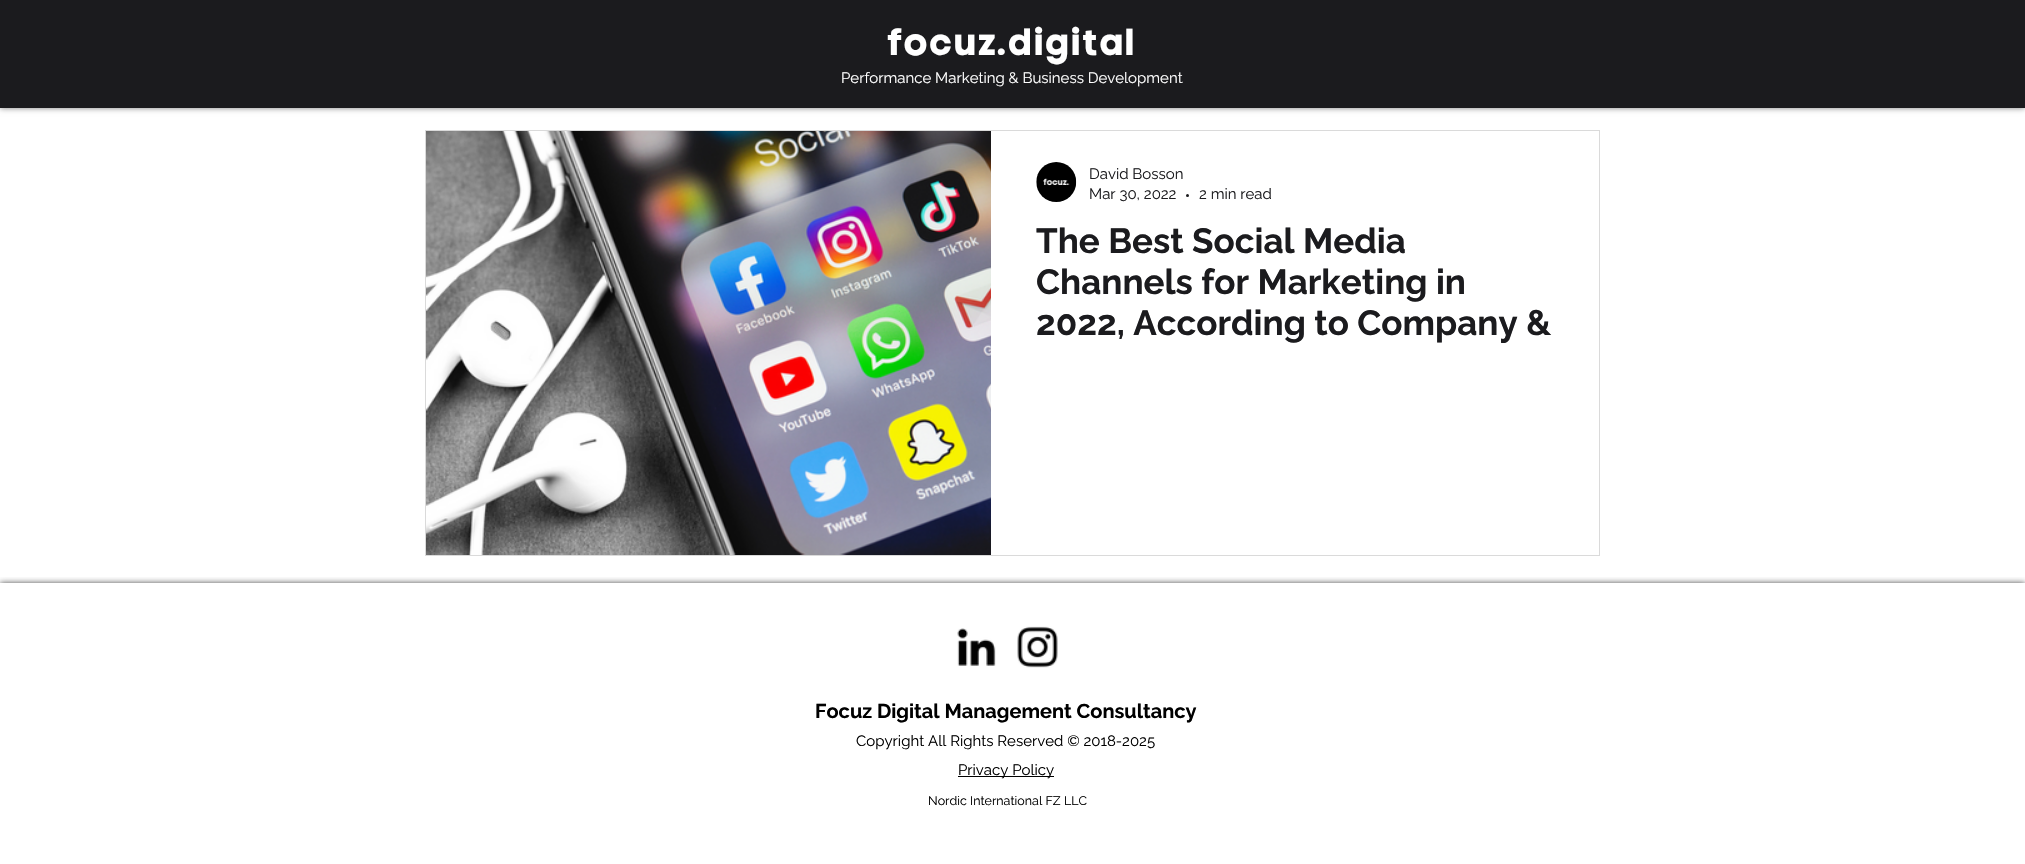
#include "include/core/SkBlurTypes.h"
#include "include/core/SkCanvas.h"
#include "include/core/SkData.h"
#include "include/core/SkFont.h"
#include "include/core/SkFontMgr.h"
#include "include/core/SkImage.h"
#include "include/core/SkMaskFilter.h"
#include "include/core/SkPaint.h"
#include "include/core/SkPathBuilder.h"
#include "include/core/SkTextBlob.h"
#include "include/effects/SkDashPathEffect.h"
#include "include/effects/SkGradientShader.h"
#include "include/utils/SkParsePath.h"

extern sk_sp<SkFontMgr> fontMgr;

static SkFont font(const char* family, int weight, float size, bool italic = false) {
    SkFontStyle style(weight, SkFontStyle::kNormal_Width,
        italic ? SkFontStyle::kItalic_Slant : SkFontStyle::kUpright_Slant);
    SkFont result(fontMgr->matchFamilyStyle(family, style), size);
    result.setSubpixel(true);
    return result;
}

static void drawLabel(SkCanvas* canvas, const char* s, float x, float y, const SkFont& font, SkColor color) {
    SkPaint ink(SkColor4f::FromColor(color));
    ink.setAntiAlias(true);
    canvas->drawString(s, x, y, font, ink);
}

static void drawTracked(SkCanvas* canvas, const char* s, float x, float y, const SkFont& font, const SkPaint& ink, float letter, float word) {
    std::vector<SkGlyphID> glyphs(font.countText(s, strlen(s), SkTextEncoding::kUTF8));
    std::vector<float> xs(glyphs.size());
    font.textToGlyphs(s, strlen(s), SkTextEncoding::kUTF8, glyphs);
    font.getXPos(glyphs, xs, x);
    float extra = 0;
    for (size_t i = 0; i < glyphs.size(); i++) {
        xs[i] += extra;
        extra += letter + word * (glyphs[i] == font.unicharToGlyph(' '));
    }
    canvas->drawTextBlob(SkTextBlob::MakeFromPosHGlyphs(glyphs, xs, y, font), 0, 0, ink);
}

static void fillRect(SkCanvas* canvas, float x, float y, float w, float h, SkColor color) {
    SkPaint ink(SkColor4f::FromColor(color));
    ink.setAntiAlias(true);
    canvas->drawRect(SkRect::MakeXYWH(x, y, w, h), ink);
}

static void drawPhoto(SkCanvas* canvas, const char* path, float x, float y, float w, float h) {
    auto image = SkImages::DeferredFromEncodedData(SkData::MakeFromFileName(path));
    canvas->drawImageRect(image, SkRect::MakeXYWH(x, y, w, h), SkSamplingOptions());
}

void draw(SkCanvas* canvas) {
    SkPaint paint;
    paint.setAntiAlias(true);
    canvas->clear(0xFFFFFFFF);
    paint.setColor(0x80000000);
    paint.setMaskFilter(SkMaskFilter::MakeBlur(kNormal_SkBlurStyle, 3));
    canvas->drawRect(SkRect::MakeXYWH(0, 0, 2025, 108), paint);
    paint.setMaskFilter(nullptr);
    fillRect(canvas, 0, 0, 2025, 108, 0xFF1B1B1E);
    SkFont font1 = font("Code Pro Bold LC", 700, 37.5f);
    paint.setColor(0xFFFFFFFF);
    drawTracked(canvas, "focuz.digital", 888, 55, font1, paint, 1.5f, 0);
    SkFont font2 = font("Raleway", 400, 15);
    drawLabel(canvas, "Performance Marketing & Business Development", 841, 83, font2, 0xFFFFFFFF);
    paint.setStroke(true);
    paint.setStrokeWidth(1);
    paint.setColor(0xFFDADADA);
    canvas->drawRect(SkRect::MakeXYWH(425.5f, 130.5f, 1174, 425), paint);
    drawPhoto(canvas, "assets/img1.png", 426, 131, 565, 424);
    drawPhoto(canvas, "assets/img2.png", 1036, 162, 41, 40);
    drawLabel(canvas, "David Bosson", 1089, 179, font2, 0xFF1B1B1E);
    drawLabel(canvas, "Mar 30, 2022", 1089, 199, font2, 0xFF1B1B1E);
    paint.setStroke(false);
    paint.setColor(0xFF1B1B1E);
    canvas->drawCircle(1187.5f, 195.5f, 1.5f, paint);
    drawLabel(canvas, "2 min read", 1199, 199, font2, 0xFF1B1B1E);
    SkFont font3 = font("Raleway", 700, 35);
    drawLabel(canvas, "The Best Social Media", 1036, 253, font3, 0xFF1B1B1E);
    drawLabel(canvas, "Channels for Marketing in", 1036, 294, font3, 0xFF1B1B1E);
    drawLabel(canvas, "2022, According to Company &", 1036, 335, font3, 0xFF1B1B1E);
    canvas->save();
    canvas->clipRect(SkRect::MakeXYWH(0, 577, 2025, 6));
    paint.setColor(0xB3000000);
    paint.setMaskFilter(SkMaskFilter::MakeBlur(kNormal_SkBlurStyle, 3));
    canvas->drawRect(SkRect::MakeXYWH(0, 583, 2025, 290), paint);
    paint.setMaskFilter(nullptr);
    canvas->restore();
    drawPhoto(canvas, "assets/img3.png", 957, 628, 39, 38);
    drawPhoto(canvas, "assets/img4.png", 1017, 626, 41, 42);
    SkFont font4 = font("Raleway", 700, 20);
    drawLabel(canvas, "Focuz Digital Management Consultancy", 815, 718, font4, 0xFF000000);
    drawLabel(canvas, "Copyright All Rights Reserved © 2018-2025", 856, 746, font2, 0xFF000000);
    fillRect(canvas, 958, 776, 96, 1, 0xFF000000);
    drawLabel(canvas, "Privacy Policy", 958, 775, font2, 0xFF000000);
    SkFont font5 = font("Raleway", 400, 12.5f);
    drawLabel(canvas, "Nordic International FZ LLC", 928, 805, font5, 0xFF000000);
}
